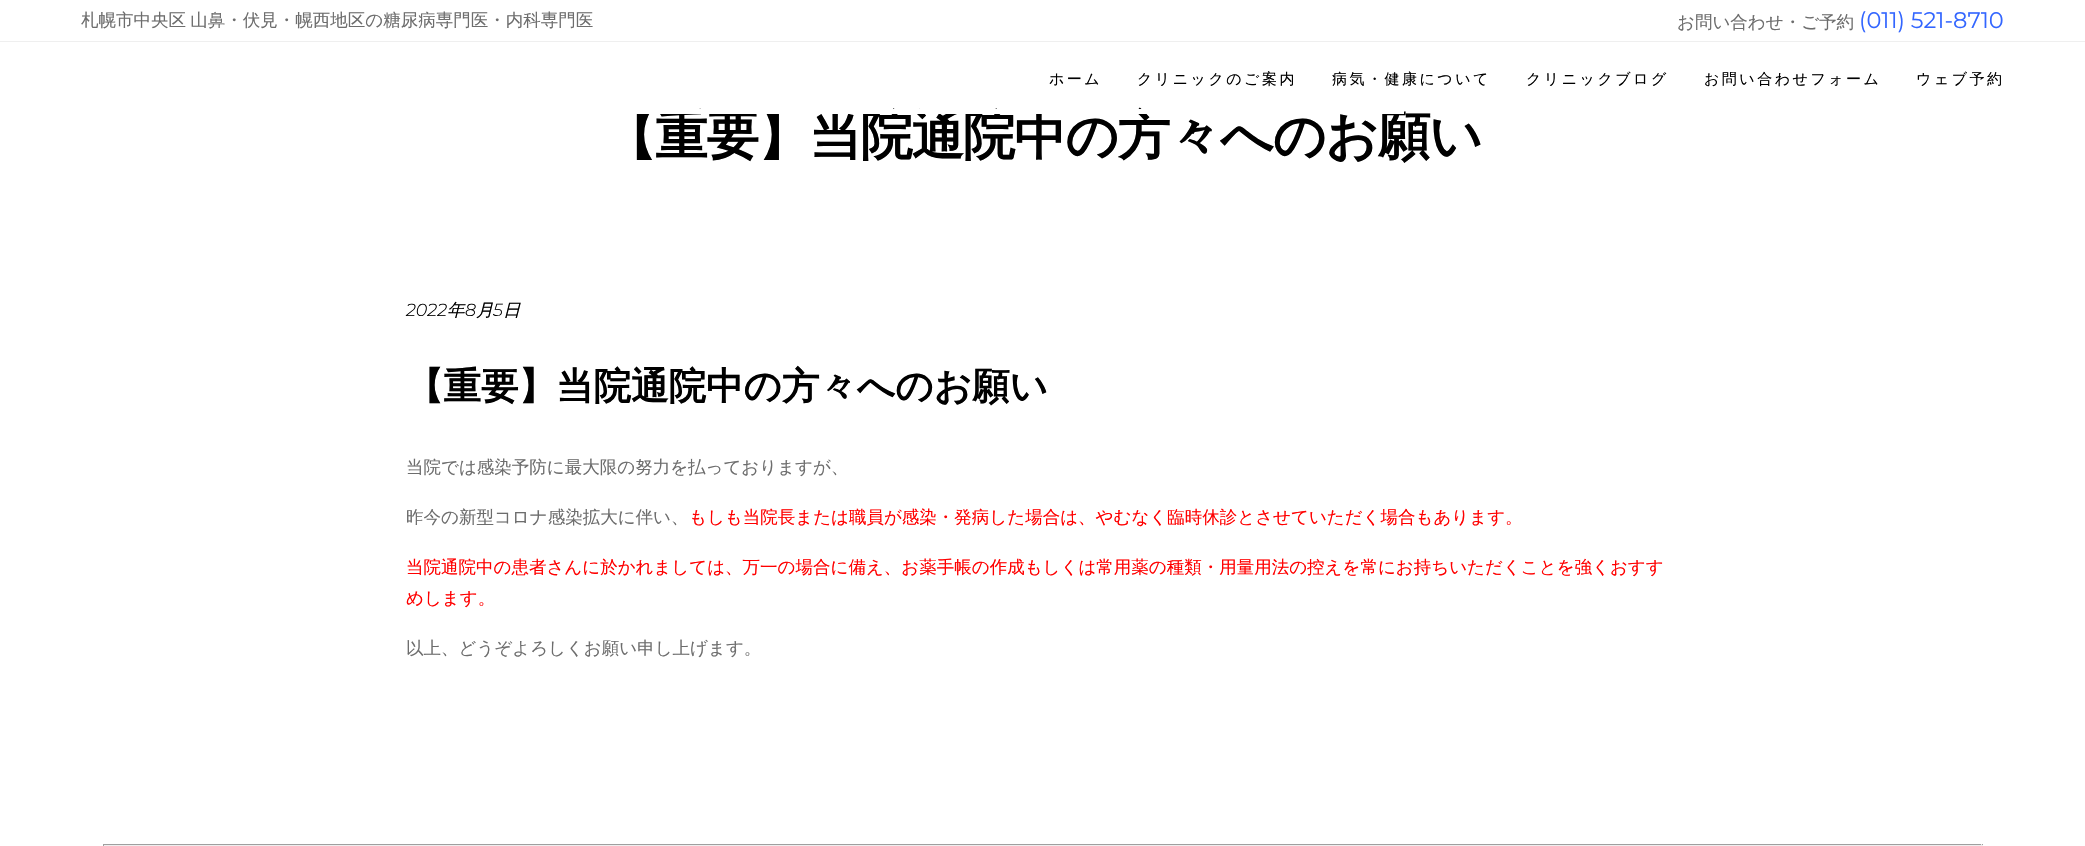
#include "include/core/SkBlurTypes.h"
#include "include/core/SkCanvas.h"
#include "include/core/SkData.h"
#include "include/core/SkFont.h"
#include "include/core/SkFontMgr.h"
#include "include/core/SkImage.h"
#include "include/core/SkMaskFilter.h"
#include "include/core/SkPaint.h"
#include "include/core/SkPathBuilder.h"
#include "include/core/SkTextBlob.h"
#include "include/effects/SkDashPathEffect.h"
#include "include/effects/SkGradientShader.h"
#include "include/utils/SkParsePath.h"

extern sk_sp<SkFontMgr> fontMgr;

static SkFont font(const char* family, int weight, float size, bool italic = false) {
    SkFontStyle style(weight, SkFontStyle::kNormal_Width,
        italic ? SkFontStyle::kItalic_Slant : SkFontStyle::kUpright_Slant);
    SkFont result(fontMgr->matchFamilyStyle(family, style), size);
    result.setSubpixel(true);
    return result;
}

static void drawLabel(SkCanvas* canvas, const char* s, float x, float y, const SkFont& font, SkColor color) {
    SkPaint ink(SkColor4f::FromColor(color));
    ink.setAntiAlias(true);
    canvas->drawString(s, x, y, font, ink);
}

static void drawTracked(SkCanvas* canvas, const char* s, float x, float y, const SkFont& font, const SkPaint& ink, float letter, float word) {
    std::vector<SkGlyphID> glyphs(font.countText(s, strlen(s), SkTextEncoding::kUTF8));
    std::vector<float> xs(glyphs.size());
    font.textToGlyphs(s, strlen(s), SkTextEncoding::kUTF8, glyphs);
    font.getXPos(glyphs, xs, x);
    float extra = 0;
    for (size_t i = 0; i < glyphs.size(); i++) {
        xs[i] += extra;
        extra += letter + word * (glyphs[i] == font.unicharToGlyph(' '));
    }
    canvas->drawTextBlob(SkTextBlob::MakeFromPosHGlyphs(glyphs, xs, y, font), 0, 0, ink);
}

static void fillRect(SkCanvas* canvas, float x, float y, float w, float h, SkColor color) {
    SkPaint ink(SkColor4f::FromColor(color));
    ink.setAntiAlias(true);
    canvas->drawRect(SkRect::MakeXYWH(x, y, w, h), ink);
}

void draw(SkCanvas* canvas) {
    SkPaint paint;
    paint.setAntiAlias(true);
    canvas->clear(0xFFFFFFFF);
    fillRect(canvas, 0, 41, 2085, 1, 0xFFEFEFEF);
    SkFont font1 = font("WenQuanYi Zen Hei", 500, 17.5f);
    paint.setColor(0xFF6D6D6D);
    drawTracked(canvas, "札幌市中央区 山鼻・伏見・幌西地区の糖尿病専門医・内科専門医", 81, 26, font1, paint, 0, -1);
    drawLabel(canvas, "お問い合わせ・ご予約", 1677, 28, font1, 0xFF6D6D6D);
    SkFont font2 = font("Montserrat", 400, 22.5f);
    drawLabel(canvas, "(011) 521-8710", 1859, 28, font2, 0xFF3366FF);
    SkFont font3 = font("WenQuanYi Zen Hei", 700, 52.5f);
    paint.setColor(0xFF000000);
    drawTracked(canvas, "【重要】当院通院中の方々へのお願い", 604, 154, font3, paint, -1.25f, 0);
    fillRect(canvas, 636, 109, 768, 5, 0xFFFFFFFF);
    SkFont font4 = font("WenQuanYi Zen Hei", 500, 15);
    drawTracked(canvas, "ホーム", 1049, 84, font4, paint, 2.5f, 0);
    drawTracked(canvas, "クリニックのご案内", 1137, 84, font4, paint, 2.5f, 0);
    drawTracked(canvas, "病気・健康について", 1332, 84, font4, paint, 2.5f, 0);
    drawTracked(canvas, "クリニックブログ", 1526, 84, font4, paint, 2.5f, 0);
    drawTracked(canvas, "お問い合わせフォーム", 1704, 84, font4, paint, 2.5f, 0);
    drawTracked(canvas, "ウェブ予約", 1916, 84, font4, paint, 2.5f, 0);
    SkFont font5 = font("Montserrat", 300, 17.5f, true);
    drawLabel(canvas, "2022", 406, 316, font5, 0xFF000000);
    SkFont font6 = font("WenQuanYi Zen Hei", 500, 17.5f, true);
    drawLabel(canvas, "年", 447, 316, font6, 0xFF000000);
    drawLabel(canvas, "8", 465, 316, font5, 0xFF000000);
    drawLabel(canvas, "月", 476, 316, font6, 0xFF000000);
    drawLabel(canvas, "5", 493, 316, font5, 0xFF000000);
    drawLabel(canvas, "日", 503, 316, font6, 0xFF000000);
    SkFont font7 = font("WenQuanYi Zen Hei", 700, 37.5f);
    drawLabel(canvas, "【重要】当院通院中の方々へのお願い", 406, 399, font7, 0xFF000000);
    drawLabel(canvas, "当院では感染予防に最大限の努力を払っておりますが、", 406, 473, font1, 0xFF6D6D6D);
    drawLabel(canvas, "昨今の新型コロナ感染拡大に伴い、", 406, 523, font1, 0xFF6D6D6D);
    drawLabel(canvas, "もしも当院長または職員が感染・発病した場合は、やむなく臨時休診とさせていただく場合もあります。", 689, 523, font1, 0xFFFF0000);
    drawLabel(canvas, "当院通院中の患者さんに於かれましては、万一の場合に備え、お薬手帳の作成もしくは常用薬の種類・用量用法の控えを常にお持ちいただくことを強くおすす", 406, 573, font1, 0xFFFF0000);
    drawLabel(canvas, "めします。", 406, 604, font1, 0xFFFF0000);
    drawLabel(canvas, "以上、どうぞよろしくお願い申し上げます。", 406, 654, font1, 0xFF6D6D6D);
    fillRect(canvas, 103, 844, 1880, 1, 0xFF9F9F9F);
    fillRect(canvas, 1981, 844, 1, 2, 0xFFEEEEEE);
    fillRect(canvas, 103, 845, 1880, 1, 0xFFEEEEEE);
    fillRect(canvas, 103, 844, 1, 2, 0xFF9F9F9F);
}
